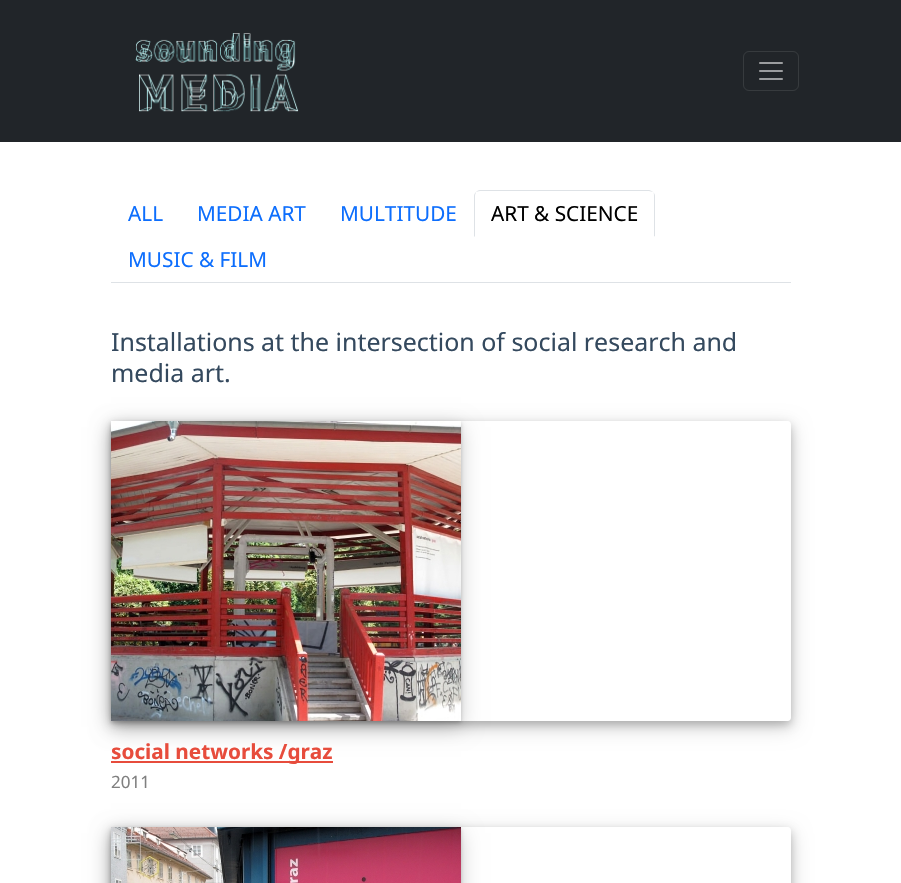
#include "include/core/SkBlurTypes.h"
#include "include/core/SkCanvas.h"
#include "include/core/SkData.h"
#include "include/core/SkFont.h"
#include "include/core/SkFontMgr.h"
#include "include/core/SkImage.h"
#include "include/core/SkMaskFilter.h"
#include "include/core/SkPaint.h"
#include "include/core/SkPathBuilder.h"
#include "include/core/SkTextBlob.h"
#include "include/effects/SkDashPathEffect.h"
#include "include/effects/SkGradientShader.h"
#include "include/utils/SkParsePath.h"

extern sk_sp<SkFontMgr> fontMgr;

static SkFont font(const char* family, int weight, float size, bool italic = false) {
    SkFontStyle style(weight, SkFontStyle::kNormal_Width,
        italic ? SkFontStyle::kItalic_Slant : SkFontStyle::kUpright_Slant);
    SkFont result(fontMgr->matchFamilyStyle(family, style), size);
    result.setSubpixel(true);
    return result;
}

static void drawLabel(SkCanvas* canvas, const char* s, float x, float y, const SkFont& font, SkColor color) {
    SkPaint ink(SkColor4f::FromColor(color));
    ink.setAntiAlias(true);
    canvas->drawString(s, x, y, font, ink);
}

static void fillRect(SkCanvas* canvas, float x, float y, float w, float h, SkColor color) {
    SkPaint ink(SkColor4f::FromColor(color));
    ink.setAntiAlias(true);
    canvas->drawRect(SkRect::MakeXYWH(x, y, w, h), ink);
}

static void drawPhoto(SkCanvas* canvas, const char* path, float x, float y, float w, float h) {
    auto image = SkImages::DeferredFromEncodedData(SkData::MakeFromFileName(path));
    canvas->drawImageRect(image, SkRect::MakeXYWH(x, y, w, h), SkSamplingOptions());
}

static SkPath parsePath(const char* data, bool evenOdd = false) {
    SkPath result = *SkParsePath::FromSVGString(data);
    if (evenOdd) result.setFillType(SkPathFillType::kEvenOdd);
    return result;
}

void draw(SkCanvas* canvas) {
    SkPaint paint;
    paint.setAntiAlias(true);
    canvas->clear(0xFFFFFFFF);
    fillRect(canvas, 0, 0, 901, 142, 0xFF212529);
    drawPhoto(canvas, "assets/img1.png", 135, 33, 164, 79);
    paint.setStroke(true);
    paint.setStrokeWidth(1);
    paint.setColor(0xFF373B3E);
    canvas->drawRoundRect(SkRect::MakeXYWH(743.5f, 51.5f, 55, 39), 5.5f, 5.5f, paint);
    drawPhoto(canvas, "assets/img2.png", 759, 62, 24, 18);
    fillRect(canvas, 111, 282, 680, 1, 0xFFDEE2E6);
    SkFont font1 = font("Noto Sans", 400, 20.75f);
    drawLabel(canvas, "ALL", 128, 221, font1, 0xFF0D6EFD);
    drawLabel(canvas, "MEDIA ART", 197, 221, font1, 0xFF0D6EFD);
    drawLabel(canvas, "MULTITUDE", 340, 221, font1, 0xFF0D6EFD);
    paint.setStroke(false);
    paint.setColor(0xFFDEE2E6);
    canvas->drawPath(parsePath("M480 190C478 190 477 191 476 192C477 192 478 191 480 191H649C650 191 652 192 653 192C652 191 650 190 649 190Z"), paint);
    canvas->drawPath(parsePath("M655 237V196C655 194 654 193 653 192C654 193 654 194 654 196V236Z"), paint);
    paint.setColor(0xFFFFFFFF);
    canvas->drawPath(parsePath("M655 237L654 236H475L474 237Z"), paint);
    paint.setColor(0xFFDEE2E6);
    canvas->drawPath(parsePath("M474 237L475 236V196C475 194 476 193 476 192C475 193 474 194 474 196Z"), paint);
    drawLabel(canvas, "ART & SCIENCE", 491, 221, font1, 0xFF000000);
    drawLabel(canvas, "MUSIC & FILM", 128, 267, font1, 0xFF0D6EFD);
    SkFont font2 = font("Noto Sans", 400, 24.95f);
    drawLabel(canvas, "Installations at the intersection of social research and", 111, 351, font2, 0xFF34495E);
    drawLabel(canvas, "media art.", 111, 382, font2, 0xFF34495E);
    canvas->save();
    canvas->clipPath(parsePath("M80 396H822V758H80ZM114 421H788C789.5 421 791 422.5 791 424V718C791 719.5 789.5 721 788 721H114C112.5 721 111 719.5 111 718V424C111 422.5 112.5 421 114 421Z", true), true);
    paint.setColor(0x30000000);
    paint.setMaskFilter(SkMaskFilter::MakeBlur(kNormal_SkBlurStyle, 10));
    canvas->drawRoundRect(SkRect::MakeXYWH(111, 427, 680, 300), 3, 3, paint);
    paint.setMaskFilter(nullptr);
    canvas->restore();
    canvas->save();
    canvas->clipPath(parsePath("M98 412H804V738H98ZM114 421H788C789.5 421 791 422.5 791 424V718C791 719.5 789.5 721 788 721H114C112.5 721 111 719.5 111 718V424C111 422.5 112.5 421 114 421Z", true), true);
    paint.setColor(0x33000000);
    paint.setMaskFilter(SkMaskFilter::MakeBlur(kNormal_SkBlurStyle, 4));
    canvas->drawRoundRect(SkRect::MakeXYWH(111, 425, 680, 300), 3, 3, paint);
    paint.setMaskFilter(nullptr);
    canvas->restore();
    paint.setColor(0x30000000);
    paint.setMaskFilter(SkMaskFilter::MakeBlur(kNormal_SkBlurStyle, 10));
    canvas->drawRect(SkRect::MakeXYWH(111, 427, 350, 300), paint);
    paint.setMaskFilter(nullptr);
    paint.setColor(0x33000000);
    paint.setMaskFilter(SkMaskFilter::MakeBlur(kNormal_SkBlurStyle, 2));
    canvas->drawRect(SkRect::MakeXYWH(111, 423, 350, 300), paint);
    paint.setMaskFilter(nullptr);
    drawPhoto(canvas, "assets/img3.png", 111, 421, 350, 300);
    fillRect(canvas, 111, 761, 222, 2, 0xFFE74C3C);
    SkFont font3 = font("Noto Sans", 700, 20.75f);
    drawLabel(canvas, "social networks /graz", 111, 759, font3, 0xFFE74C3C);
    SkFont font4 = font("Noto Sans", 400, 17);
    drawLabel(canvas, "2011", 111, 788, font4, 0xFF808080);
    canvas->save();
    canvas->clipPath(parsePath("M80 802H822V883H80ZM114 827H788C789.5 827 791 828.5 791 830V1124C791 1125.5 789.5 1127 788 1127H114C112.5 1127 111 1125.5 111 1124V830C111 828.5 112.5 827 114 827Z", true), true);
    paint.setColor(0x30000000);
    paint.setMaskFilter(SkMaskFilter::MakeBlur(kNormal_SkBlurStyle, 10));
    canvas->drawRoundRect(SkRect::MakeXYWH(111, 833, 680, 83), 3, 3, paint);
    paint.setMaskFilter(nullptr);
    canvas->restore();
    canvas->save();
    canvas->clipPath(parsePath("M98 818H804V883H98ZM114 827H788C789.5 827 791 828.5 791 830V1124C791 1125.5 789.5 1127 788 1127H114C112.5 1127 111 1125.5 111 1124V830C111 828.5 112.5 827 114 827Z", true), true);
    paint.setColor(0x33000000);
    paint.setMaskFilter(SkMaskFilter::MakeBlur(kNormal_SkBlurStyle, 4));
    canvas->drawRoundRect(SkRect::MakeXYWH(111, 831, 680, 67), 3, 3, paint);
    paint.setMaskFilter(nullptr);
    canvas->restore();
    paint.setColor(0x30000000);
    paint.setMaskFilter(SkMaskFilter::MakeBlur(kNormal_SkBlurStyle, 10));
    canvas->drawRect(SkRect::MakeXYWH(111, 833, 350, 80), paint);
    paint.setMaskFilter(nullptr);
    paint.setColor(0x33000000);
    paint.setMaskFilter(SkMaskFilter::MakeBlur(kNormal_SkBlurStyle, 2));
    canvas->drawRect(SkRect::MakeXYWH(111, 829, 350, 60), paint);
    paint.setMaskFilter(nullptr);
    drawPhoto(canvas, "assets/img4.png", 111, 827, 350, 56);
}
